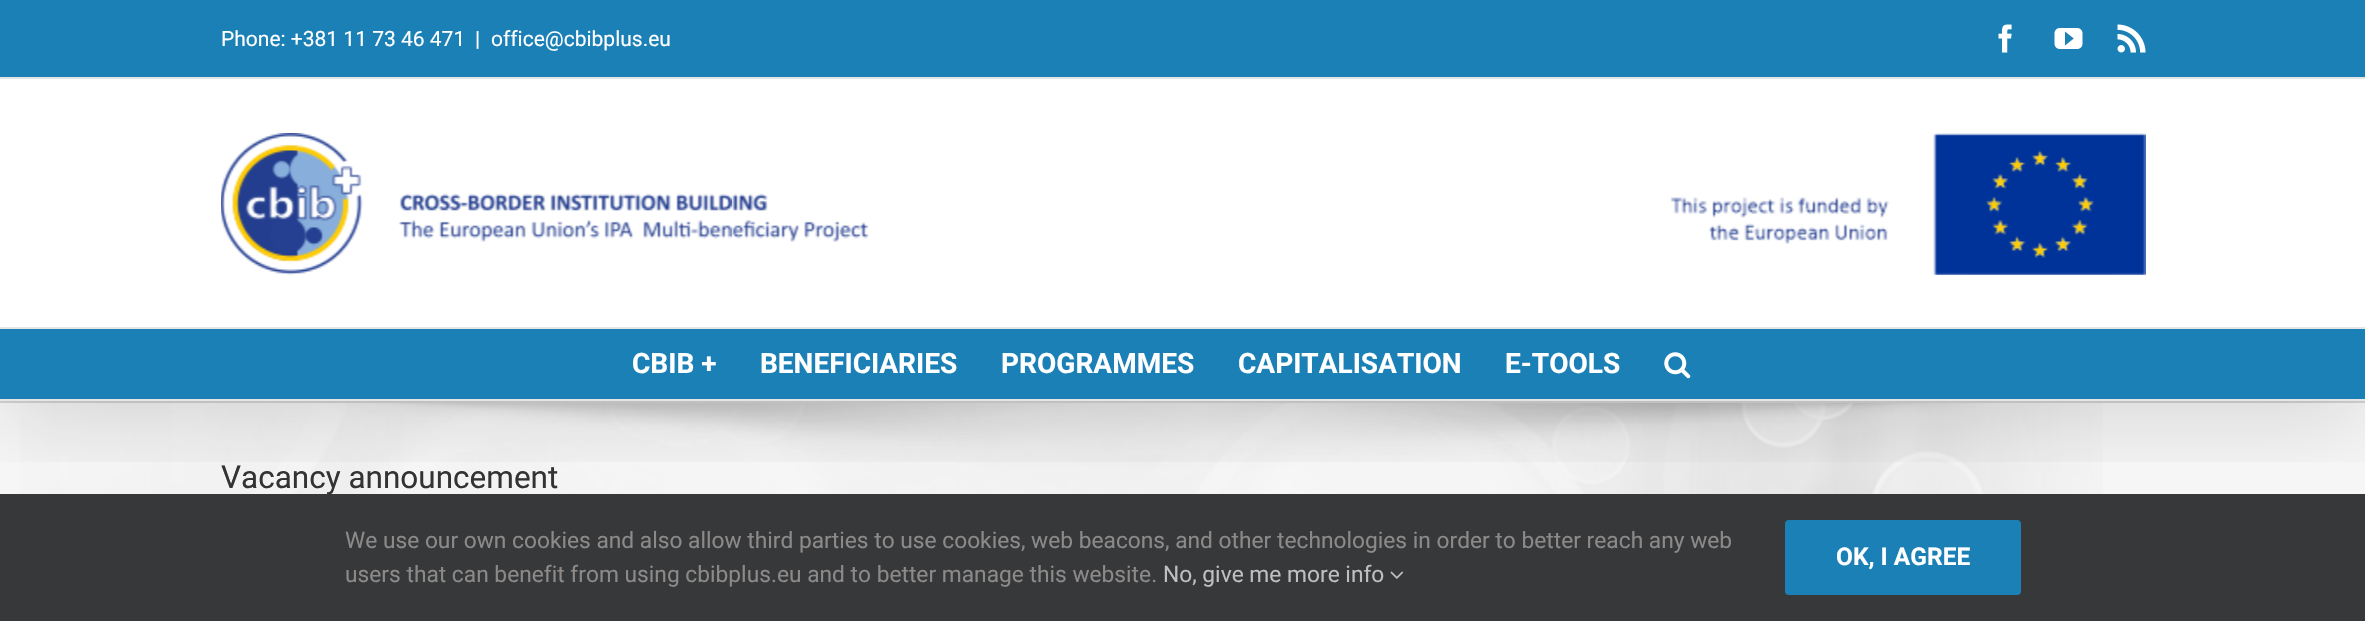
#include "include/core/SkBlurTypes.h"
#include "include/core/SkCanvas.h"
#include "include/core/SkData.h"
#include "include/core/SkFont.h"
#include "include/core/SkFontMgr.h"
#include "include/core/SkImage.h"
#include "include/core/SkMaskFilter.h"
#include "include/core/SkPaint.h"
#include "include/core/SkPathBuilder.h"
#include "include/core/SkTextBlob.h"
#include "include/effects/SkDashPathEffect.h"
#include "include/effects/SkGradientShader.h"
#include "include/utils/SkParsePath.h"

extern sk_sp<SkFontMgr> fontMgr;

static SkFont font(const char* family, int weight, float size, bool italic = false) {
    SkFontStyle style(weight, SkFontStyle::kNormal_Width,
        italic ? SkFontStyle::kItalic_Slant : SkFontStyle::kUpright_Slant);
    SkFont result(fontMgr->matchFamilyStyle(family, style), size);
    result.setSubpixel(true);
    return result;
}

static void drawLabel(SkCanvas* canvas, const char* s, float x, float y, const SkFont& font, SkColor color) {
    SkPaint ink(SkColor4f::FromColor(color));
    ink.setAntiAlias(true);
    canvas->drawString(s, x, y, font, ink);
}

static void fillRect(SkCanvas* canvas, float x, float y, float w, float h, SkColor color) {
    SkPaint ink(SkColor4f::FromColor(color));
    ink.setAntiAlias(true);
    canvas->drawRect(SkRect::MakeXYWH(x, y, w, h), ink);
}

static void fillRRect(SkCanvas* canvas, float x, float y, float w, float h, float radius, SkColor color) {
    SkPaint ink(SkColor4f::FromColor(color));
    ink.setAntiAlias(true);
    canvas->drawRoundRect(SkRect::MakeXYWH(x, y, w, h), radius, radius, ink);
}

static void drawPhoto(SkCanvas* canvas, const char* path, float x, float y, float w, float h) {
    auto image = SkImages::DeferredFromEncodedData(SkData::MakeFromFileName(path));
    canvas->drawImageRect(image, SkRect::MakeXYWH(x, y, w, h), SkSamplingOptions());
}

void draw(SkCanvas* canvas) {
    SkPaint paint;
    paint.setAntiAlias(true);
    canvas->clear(0xFFFFFFFF);
    fillRect(canvas, 0, 403, 2365, 91, 0xFFF6F6F6);
    drawPhoto(canvas, "assets/img7.png", 20, 403, 2083, 91);
    fillRect(canvas, 0, 401, 2365, 2, 0xFFD2D3D4);
    canvas->save();
    canvas->clipRect(SkRect::MakeXYWH(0, 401, 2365, 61));
    paint.setColor(0x24000000);
    paint.setMaskFilter(SkMaskFilter::MakeBlur(kNormal_SkBlurStyle, 44));
    canvas->drawRect(SkRect::MakeXYWH(4, 21, 2359, 394), paint);
    paint.setMaskFilter(nullptr);
    canvas->restore();
    fillRect(canvas, 0, 0, 2365, 77, 0xFF1B80B6);
    fillRect(canvas, 0, 77, 2365, 2, 0xFFE5E5E5);
    SkFont font1 = font("Roboto", 400, 21);
    drawLabel(canvas, "Phone: +381 11 73 46 471", 221, 46, font1, 0xFFFFFFFF);
    drawLabel(canvas, "|", 475, 46, font1, 0xFFFFFFFF);
    drawLabel(canvas, "office@cbibplus.eu", 491, 46, font1, 0xFFFFFFFF);
    drawPhoto(canvas, "assets/img1.png", 1998, 24, 14, 29);
    drawPhoto(canvas, "assets/img2.png", 2054, 28, 29, 21);
    drawPhoto(canvas, "assets/img3.png", 2117, 24, 29, 29);
    fillRect(canvas, 0, 327, 2365, 2, 0xFFE5E5E5);
    drawPhoto(canvas, "assets/img4.png", 221, 133, 648, 142);
    drawPhoto(canvas, "assets/img5.png", 1670, 133, 476, 142);
    fillRect(canvas, 0, 329, 2365, 70, 0xFF1A80B6);
    fillRect(canvas, 0, 399, 2365, 2, 0xFFE5E5E5);
    SkFont font2 = font("Roboto", 700, 28);
    drawLabel(canvas, "CBIB +", 632, 373, font2, 0xFFFFFFFF);
    drawLabel(canvas, "BENEFICIARIES", 760, 373, font2, 0xFFFFFFFF);
    drawLabel(canvas, "PROGRAMMES", 1001, 373, font2, 0xFFFFFFFF);
    drawLabel(canvas, "CAPITALISATION", 1238, 373, font2, 0xFFFFFFFF);
    drawLabel(canvas, "E-TOOLS", 1505, 373, font2, 0xFFFFFFFF);
    drawPhoto(canvas, "assets/img6.png", 1664, 352, 27, 27);
    SkFont font3 = font("Roboto", 400, 31.5f);
    drawLabel(canvas, "Vacancy announcement", 221, 488, font3, 0xFF333333);
    fillRect(canvas, 0, 494, 2365, 127, 0xFF363839);
    SkFont font4 = font("Roboto", 400, 22.75f);
    drawLabel(canvas, "We use our own cookies and also allow third parties to use cookies, web beacons, and other technologies in order to better reach any web", 345, 548, font4, 0xFF8C8989);
    drawLabel(canvas, "users that can benefit from using cbibplus.eu and to better manage this website.", 345, 582, font4, 0xFF8C8989);
    drawLabel(canvas, "No, give me more info", 1163, 582, font4, 0xFFBFBFBF);
    drawPhoto(canvas, "assets/img8.png", 1390, 571, 14, 8);
    fillRRect(canvas, 1785, 520, 236, 75, 4, 0xFF1A80B6);
    SkFont font5 = font("Roboto", 700, 24.5f);
    drawLabel(canvas, "OK, I AGREE", 1836, 565, font5, 0xFFFFFFFF);
}
